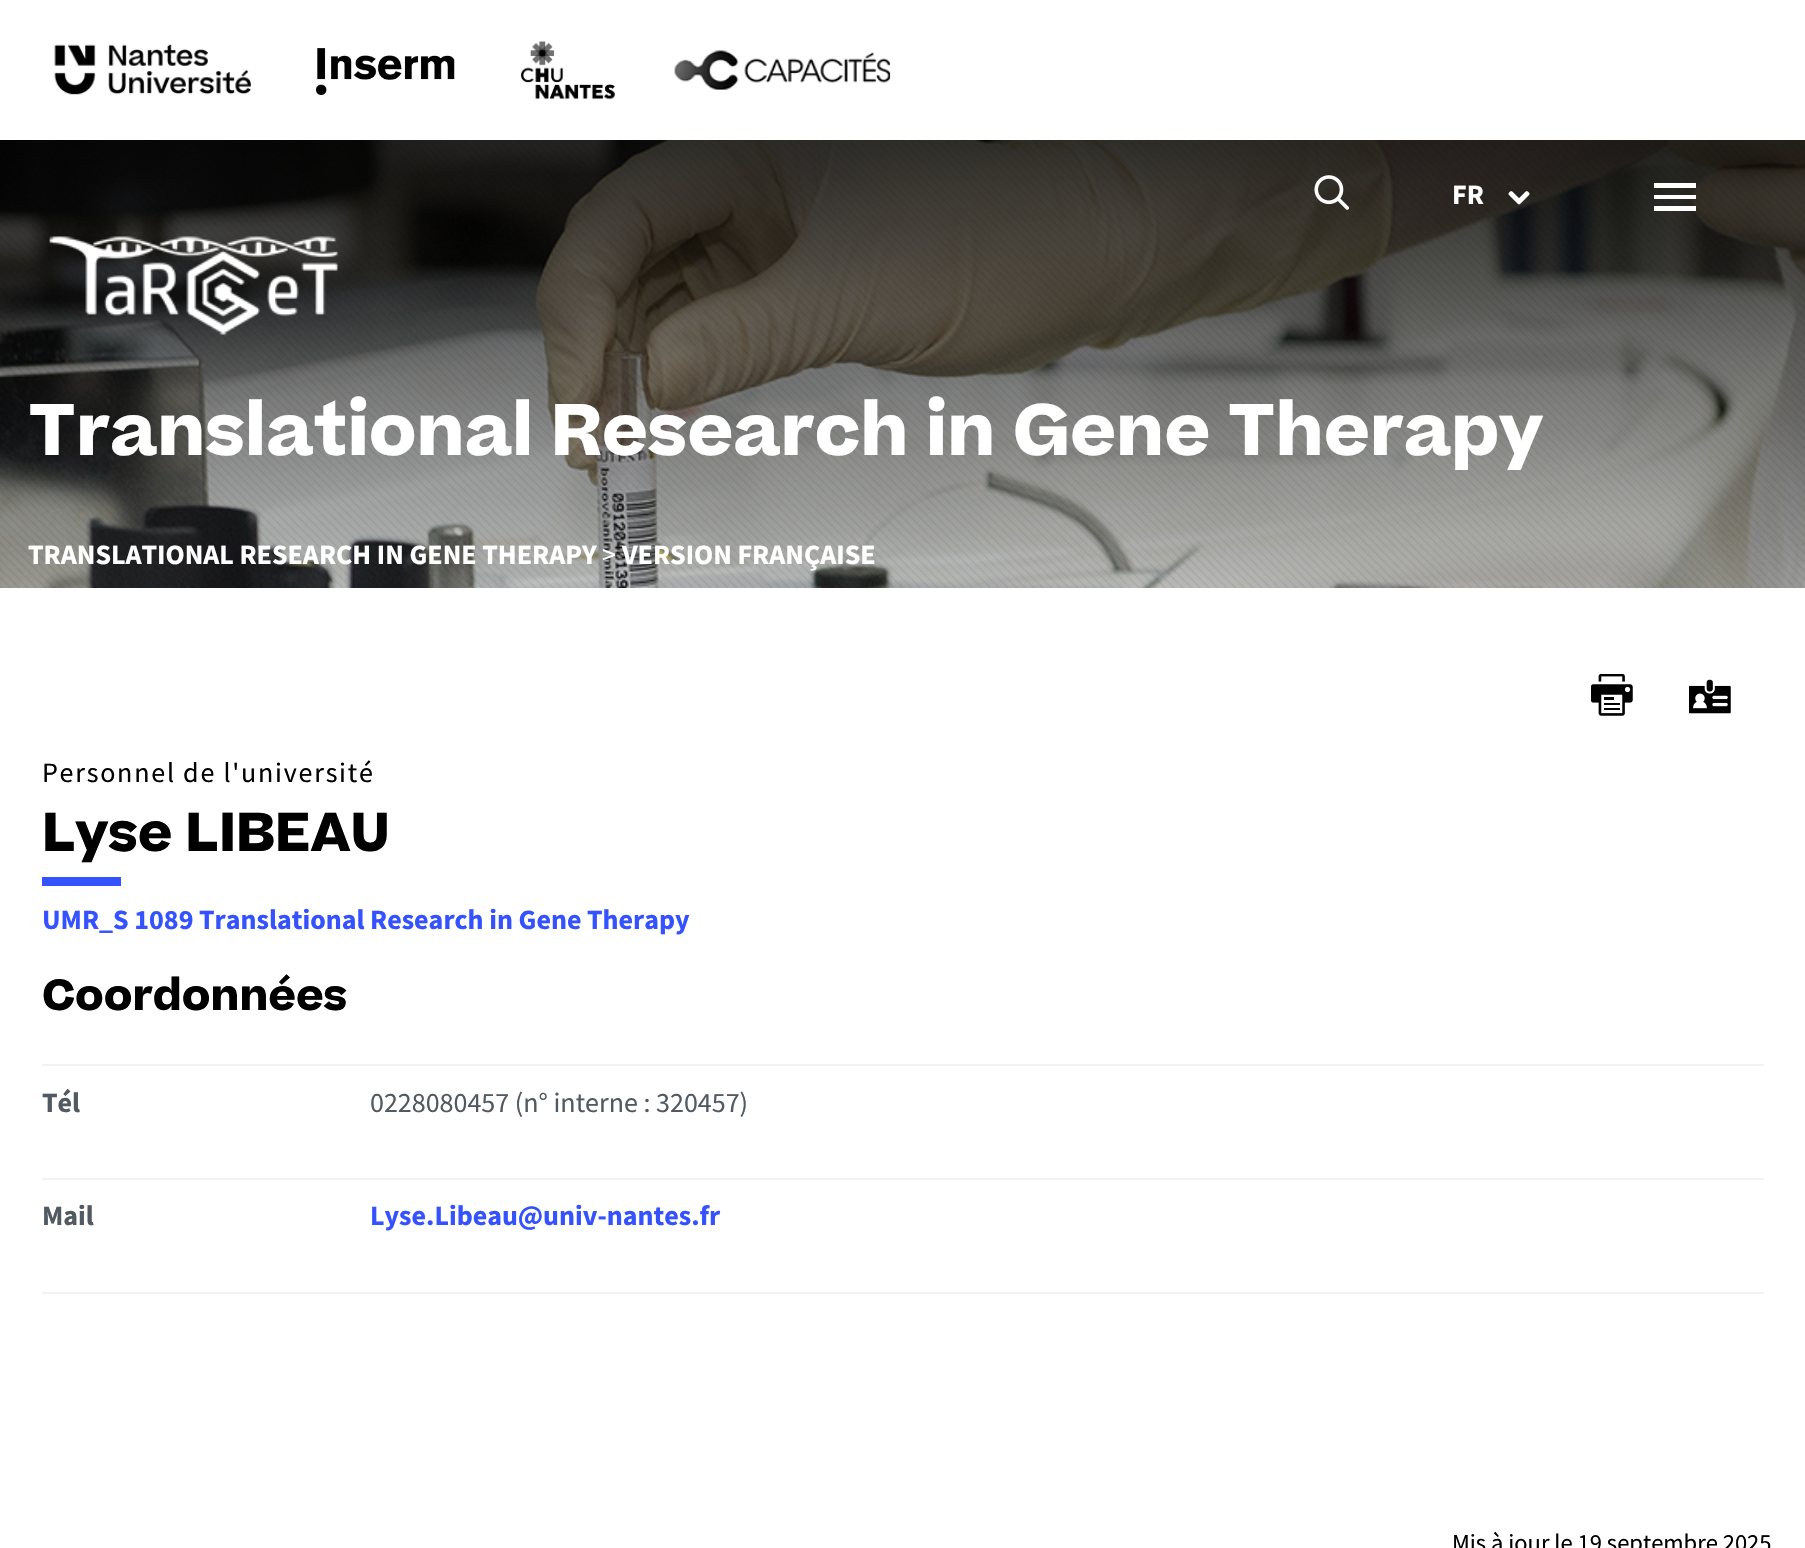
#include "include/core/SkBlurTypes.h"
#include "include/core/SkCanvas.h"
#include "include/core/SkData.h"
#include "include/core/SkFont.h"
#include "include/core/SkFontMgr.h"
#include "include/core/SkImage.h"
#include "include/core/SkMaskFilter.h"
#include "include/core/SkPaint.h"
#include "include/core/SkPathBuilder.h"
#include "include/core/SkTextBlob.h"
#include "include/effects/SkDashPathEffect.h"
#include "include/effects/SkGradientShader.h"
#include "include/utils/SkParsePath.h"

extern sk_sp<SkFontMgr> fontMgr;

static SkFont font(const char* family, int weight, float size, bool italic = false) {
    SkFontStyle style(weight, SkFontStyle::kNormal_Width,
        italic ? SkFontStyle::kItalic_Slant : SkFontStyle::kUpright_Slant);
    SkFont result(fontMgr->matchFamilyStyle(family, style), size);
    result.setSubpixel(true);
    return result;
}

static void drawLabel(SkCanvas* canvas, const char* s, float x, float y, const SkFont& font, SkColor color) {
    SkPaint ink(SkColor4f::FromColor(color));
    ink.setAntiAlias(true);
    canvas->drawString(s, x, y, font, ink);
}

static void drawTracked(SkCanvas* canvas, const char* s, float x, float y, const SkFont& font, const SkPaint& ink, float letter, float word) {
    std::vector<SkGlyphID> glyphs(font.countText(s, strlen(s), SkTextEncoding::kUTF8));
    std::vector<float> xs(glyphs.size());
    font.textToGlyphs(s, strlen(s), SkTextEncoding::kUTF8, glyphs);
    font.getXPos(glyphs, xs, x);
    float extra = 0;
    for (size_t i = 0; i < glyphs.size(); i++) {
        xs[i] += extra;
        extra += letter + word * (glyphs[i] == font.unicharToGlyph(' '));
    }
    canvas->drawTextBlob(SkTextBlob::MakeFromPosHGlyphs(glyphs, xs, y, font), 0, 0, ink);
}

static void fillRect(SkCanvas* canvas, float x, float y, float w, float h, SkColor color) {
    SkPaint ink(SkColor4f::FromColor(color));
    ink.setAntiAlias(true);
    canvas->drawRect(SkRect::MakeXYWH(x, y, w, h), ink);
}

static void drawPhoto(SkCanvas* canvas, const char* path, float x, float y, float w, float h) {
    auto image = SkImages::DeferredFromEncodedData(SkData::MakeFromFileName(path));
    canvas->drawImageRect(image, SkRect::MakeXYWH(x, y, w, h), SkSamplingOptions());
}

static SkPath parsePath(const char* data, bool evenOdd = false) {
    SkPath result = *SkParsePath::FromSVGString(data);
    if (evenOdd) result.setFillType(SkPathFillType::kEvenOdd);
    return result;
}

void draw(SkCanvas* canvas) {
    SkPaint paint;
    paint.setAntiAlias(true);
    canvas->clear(0xFFFFFFFF);
    drawPhoto(canvas, "assets/img1.png", 54, 44, 197, 51);
    drawPhoto(canvas, "assets/img2.png", 316, 48, 139, 47);
    drawPhoto(canvas, "assets/img3.png", 520, 41, 96, 59);
    drawPhoto(canvas, "assets/img4.png", 674, 50, 217, 40);
    drawPhoto(canvas, "assets/img5.png", 0, 140, 1805, 448);
    drawPhoto(canvas, "assets/img6.png", 0, 140, 1805, 448);
    drawPhoto(canvas, "assets/img7.png", 1314, 175, 35, 35);
    SkFont font1 = font("Source Sans Pro", 700, 28);
    drawLabel(canvas, "FR", 1452, 204, font1, 0xFFFFFFFF);
    drawPhoto(canvas, "assets/img8.png", 1508, 191, 22, 14);
    paint.setColor(0xFFFFFFFF);
    canvas->drawPath(parsePath("M1654 211H1696V206H1654ZM1654 199H1696V195H1654ZM1654 183V188H1696V183Z"), paint);
    drawPhoto(canvas, "assets/img9.png", 49, 236, 289, 99);
    SkFont font2 = font("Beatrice", 700, 70);
    drawLabel(canvas, "Translational Research in Gene Therapy", 28, 455, font2, 0xFFFFFFFF);
    drawLabel(canvas, "TRANSLATIONAL RESEARCH IN GENE THERAPY", 28, 564, font1, 0xFFFFFFFF);
    SkFont font3 = font("Source Sans Pro", 400, 28);
    drawLabel(canvas, ">", 602, 564, font3, 0xFFFFFFFF);
    drawLabel(canvas, "VERSION FRANÇAISE", 622, 564, font1, 0xFFFFFFFF);
    drawPhoto(canvas, "assets/img10.png", 1591, 674, 42, 42);
    drawPhoto(canvas, "assets/img11.png", 1689, 679, 42, 35);
    paint.setColor(0xFF000000);
    drawTracked(canvas, "Personnel de l'université", 42, 782, font3, paint, 1.75f, 0);
    SkFont font4 = font("Beatrice", 700, 52.5f);
    drawLabel(canvas, "Lyse LIBEAU", 42, 851, font4, 0xFF000000);
    fillRect(canvas, 42, 877, 79, 9, 0xFF3452FF);
    drawLabel(canvas, "UMR_S 1089 Translational Research in Gene Therapy", 42, 929, font1, 0xFF3452FF);
    SkFont font5 = font("Beatrice", 700, 42);
    drawLabel(canvas, "Coordonnées", 42, 1010, font5, 0xFF000000);
    fillRect(canvas, 42, 1292, 1722, 2, 0xFFF1F2F6);
    drawLabel(canvas, "Tél", 42, 1112, font1, 0xFF515961);
    fillRect(canvas, 42, 1064, 1722, 2, 0xFFF1F2F6);
    drawLabel(canvas, "0228080457 (n° interne : 320457)", 370, 1112, font3, 0xFF515961);
    drawLabel(canvas, "Mail", 42, 1225, font1, 0xFF515961);
    fillRect(canvas, 42, 1178, 1722, 2, 0xFFF1F2F6);
    drawLabel(canvas, "Lyse.Libeau@univ-nantes.fr", 370, 1225, font1, 0xFF3452FF);
    SkFont font6 = font("Source Sans Pro", 400, 24.5f);
    drawLabel(canvas, "Mis à jour le 19 septembre 2025", 1452, 1551, font6, 0xFF000000);
}
